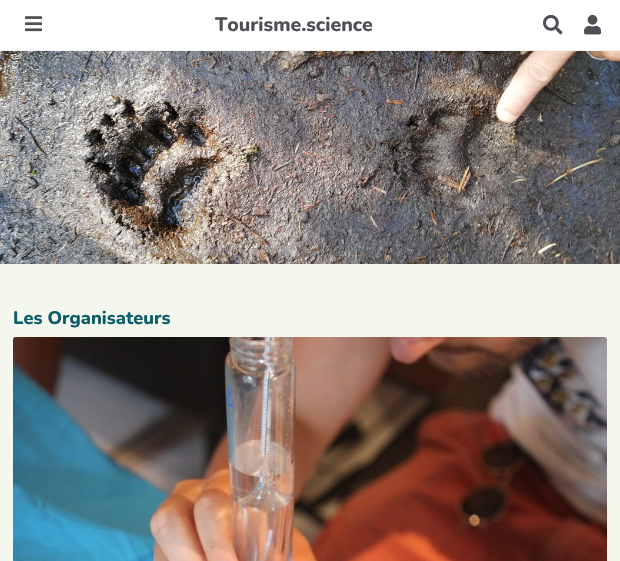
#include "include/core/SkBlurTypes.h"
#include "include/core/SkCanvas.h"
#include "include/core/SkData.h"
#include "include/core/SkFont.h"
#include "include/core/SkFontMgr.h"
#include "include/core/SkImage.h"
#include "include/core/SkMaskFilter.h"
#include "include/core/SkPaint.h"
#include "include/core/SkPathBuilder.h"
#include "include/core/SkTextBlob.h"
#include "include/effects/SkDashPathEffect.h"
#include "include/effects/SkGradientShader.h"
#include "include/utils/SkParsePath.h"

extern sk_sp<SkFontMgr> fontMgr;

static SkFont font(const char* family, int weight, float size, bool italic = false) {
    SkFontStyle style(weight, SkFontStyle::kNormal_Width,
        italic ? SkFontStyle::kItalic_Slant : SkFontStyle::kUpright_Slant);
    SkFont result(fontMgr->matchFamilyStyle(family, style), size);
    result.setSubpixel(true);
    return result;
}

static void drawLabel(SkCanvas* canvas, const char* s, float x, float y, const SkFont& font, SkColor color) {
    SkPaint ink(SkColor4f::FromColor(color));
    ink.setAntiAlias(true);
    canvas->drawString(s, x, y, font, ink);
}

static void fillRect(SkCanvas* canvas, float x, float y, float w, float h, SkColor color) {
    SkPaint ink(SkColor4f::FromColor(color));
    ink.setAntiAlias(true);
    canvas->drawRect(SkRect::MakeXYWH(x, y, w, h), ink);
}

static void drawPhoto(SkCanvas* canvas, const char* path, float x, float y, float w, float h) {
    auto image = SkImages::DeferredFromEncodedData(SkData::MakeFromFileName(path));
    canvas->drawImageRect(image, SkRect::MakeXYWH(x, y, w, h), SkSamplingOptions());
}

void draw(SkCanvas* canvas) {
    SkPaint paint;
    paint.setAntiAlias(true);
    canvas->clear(0xFFFFFFFF);
    fillRect(canvas, 0, 50, 620, 1, 0xFFF2F2F2);
    drawPhoto(canvas, "assets/img1.png", 25, 16, 18, 16);
    SkFont font1 = font("Nunito", 800, 19.5f);
    drawLabel(canvas, "Tourisme.science", 215, 31, font1, 0xFF4E5056);
    drawPhoto(canvas, "assets/img2.png", 543, 14, 20, 21);
    drawPhoto(canvas, "assets/img3.png", 584, 14, 18, 21);
    drawPhoto(canvas, "assets/img4.png", 0, 51, 620, 213);
    fillRect(canvas, 0, 264, 620, 297, 0xFFF3F7ED);
    SkFont font2 = font("Nunito", 800, 18.25f);
    drawLabel(canvas, "Les Organisateurs", 13, 324, font2, 0xFF0C5D6A);
    drawPhoto(canvas, "assets/img5.png", 13, 337, 594, 224);
}
